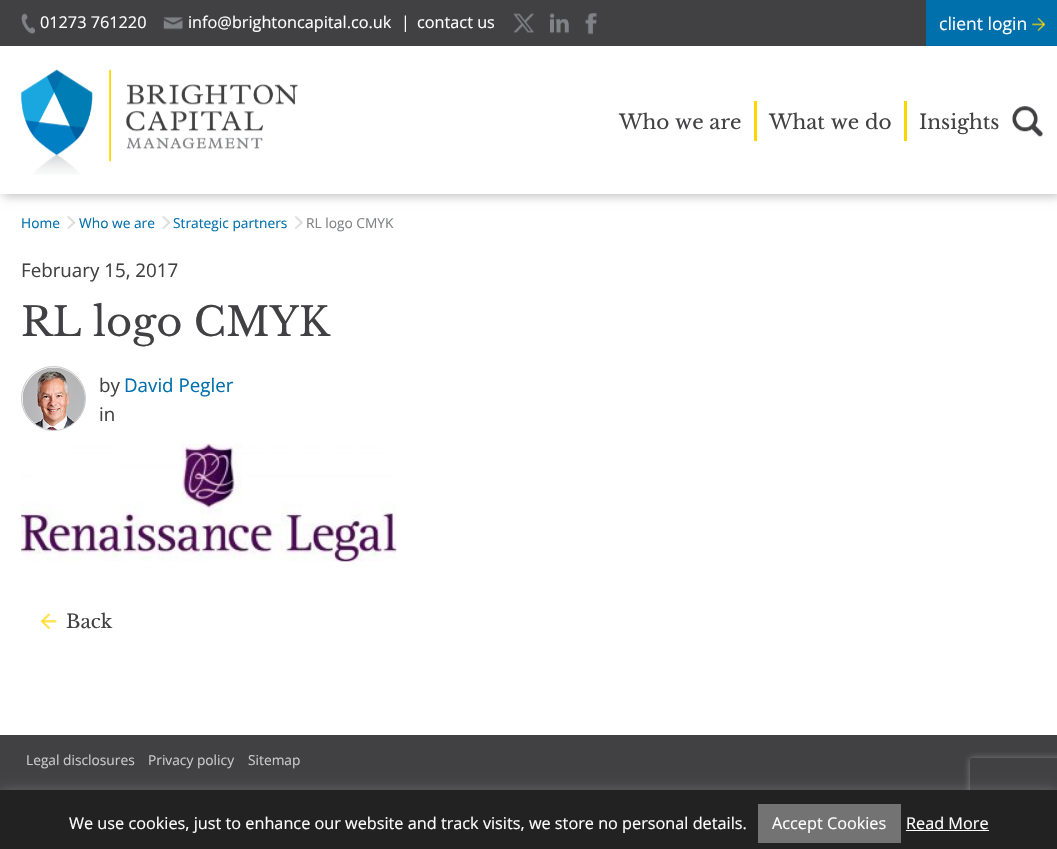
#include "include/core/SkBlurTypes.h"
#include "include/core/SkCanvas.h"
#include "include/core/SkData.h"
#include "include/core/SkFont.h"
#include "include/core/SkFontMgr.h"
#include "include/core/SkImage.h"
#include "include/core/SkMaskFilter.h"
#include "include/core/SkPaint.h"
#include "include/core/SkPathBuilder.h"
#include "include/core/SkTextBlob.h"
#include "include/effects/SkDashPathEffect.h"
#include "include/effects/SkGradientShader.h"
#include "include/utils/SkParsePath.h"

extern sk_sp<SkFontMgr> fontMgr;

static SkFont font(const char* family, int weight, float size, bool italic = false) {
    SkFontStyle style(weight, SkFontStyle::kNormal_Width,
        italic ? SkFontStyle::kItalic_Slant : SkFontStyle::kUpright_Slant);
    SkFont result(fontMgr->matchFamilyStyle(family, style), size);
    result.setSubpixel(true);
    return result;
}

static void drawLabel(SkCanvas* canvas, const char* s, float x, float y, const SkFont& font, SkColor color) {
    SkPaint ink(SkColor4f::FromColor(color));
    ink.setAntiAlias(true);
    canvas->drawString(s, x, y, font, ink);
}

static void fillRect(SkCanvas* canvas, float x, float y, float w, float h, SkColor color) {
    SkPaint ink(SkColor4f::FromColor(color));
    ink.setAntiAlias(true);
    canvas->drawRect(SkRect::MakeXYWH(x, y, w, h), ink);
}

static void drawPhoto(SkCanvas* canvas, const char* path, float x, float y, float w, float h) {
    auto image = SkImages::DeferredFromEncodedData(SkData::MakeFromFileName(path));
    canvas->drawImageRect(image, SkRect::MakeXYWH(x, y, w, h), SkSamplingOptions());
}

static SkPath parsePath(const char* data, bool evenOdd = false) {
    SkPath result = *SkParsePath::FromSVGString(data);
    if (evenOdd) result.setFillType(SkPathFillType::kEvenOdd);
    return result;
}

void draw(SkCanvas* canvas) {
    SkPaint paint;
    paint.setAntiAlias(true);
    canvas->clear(0xFFFFFFFF);
    paint.setColor(0x40000000);
    paint.setMaskFilter(SkMaskFilter::MakeBlur(kNormal_SkBlurStyle, 5));
    canvas->drawRect(SkRect::MakeXYWH(3, 3, 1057, 193), paint);
    paint.setMaskFilter(nullptr);
    fillRect(canvas, 0, 46, 1057, 148, 0xFFFFFFFF);
    fillRect(canvas, 0, 0, 926, 46, 0xFF414042);
    drawPhoto(canvas, "assets/img1.png", 21, 13, 14, 22);
    SkFont font1 = font("Open Sans", 400, 16.25f);
    drawLabel(canvas, "01273 761220", 40, 28, font1, 0xFFFFFFFF);
    drawPhoto(canvas, "assets/img2.png", 163, 17, 20, 13);
    drawLabel(canvas, "info@brightoncapital.co.uk", 188, 28, font1, 0xFFFFFFFF);
    drawLabel(canvas, "|", 401, 28, font1, 0xFFFFFFFF);
    drawLabel(canvas, "contact us", 417, 28, font1, 0xFFFFFFFF);
    drawPhoto(canvas, "assets/img3.png", 513, 13, 21, 20);
    drawPhoto(canvas, "assets/img4.png", 550, 13, 19, 21);
    drawPhoto(canvas, "assets/img5.png", 585, 13, 12, 22);
    fillRect(canvas, 926, 0, 131, 46, 0xFF0070AD);
    SkFont font2 = font("Open Sans", 400, 17.5f);
    drawLabel(canvas, "client login", 939, 30, font2, 0xFFFFFFFF);
    drawPhoto(canvas, "assets/img6.png", 1032, 18, 13, 14);
    drawPhoto(canvas, "assets/img7.png", 21, 69, 277, 106);
    SkFont font3 = font("Libre Baskerville", 400, 20);
    drawLabel(canvas, "Who we are", 619, 129, font3, 0xFF414042);
    fillRect(canvas, 754, 101, 3, 40, 0xFFFFD602);
    drawLabel(canvas, "What we do", 769, 129, font3, 0xFF414042);
    fillRect(canvas, 904, 101, 3, 40, 0xFFFFD602);
    drawLabel(canvas, "Insights", 919, 129, font3, 0xFF414042);
    drawPhoto(canvas, "assets/img8.png", 1012, 106, 31, 31);
    SkFont font4 = font("Open Sans", 400, 13.75f);
    drawLabel(canvas, "Home", 21, 228, font4, 0xFF0070AD);
    drawPhoto(canvas, "assets/img9.png", 67, 216, 8, 13);
    drawLabel(canvas, "Who we are", 79, 228, font4, 0xFF0070AD);
    drawPhoto(canvas, "assets/img9.png", 162, 216, 8, 13);
    drawLabel(canvas, "Strategic partners", 173, 228, font4, 0xFF0070AD);
    drawPhoto(canvas, "assets/img10.png", 295, 216, 8, 13);
    drawLabel(canvas, "RL logo CMYK", 306, 228, font4, 0xFF808285);
    SkFont font5 = font("Open Sans", 400, 18.75f);
    drawLabel(canvas, "February 15, 2017", 21, 277, font5, 0xFF414042);
    SkFont font6 = font("Libre Baskerville", 400, 40);
    drawLabel(canvas, "RL logo CMYK", 21, 336, font6, 0xFF414042);
    paint.setStroke(true);
    paint.setStrokeWidth(1);
    paint.setColor(0xFFC9C9C9);
    canvas->drawCircle(53.5f, 398.5f, 32, paint);
    drawPhoto(canvas, "assets/img11.png", 22, 367, 63, 63);
    drawLabel(canvas, "by", 99, 392, font5, 0xFF414042);
    drawLabel(canvas, "David Pegler", 124, 392, font5, 0xFF0070AD);
    drawLabel(canvas, "in", 99, 421, font5, 0xFF414042);
    drawPhoto(canvas, "assets/img12.png", 21, 443, 376, 119);
    drawPhoto(canvas, "assets/img13.png", 41, 613, 16, 16);
    SkFont font7 = font("Libre Baskerville", 400, 18.75f);
    drawLabel(canvas, "Back", 66, 628, font7, 0xFF414042);
    fillRect(canvas, 0, 735, 1057, 55, 0xFF414042);
    drawLabel(canvas, "Legal disclosures", 26, 765, font4, 0xFFC9C9C9);
    drawLabel(canvas, "Privacy policy", 148, 765, font4, 0xFFC9C9C9);
    drawLabel(canvas, "Sitemap", 248, 765, font4, 0xFFC9C9C9);
    canvas->save();
    canvas->clipPath(parsePath("M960 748H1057V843H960ZM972.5 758H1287.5C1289 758 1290 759 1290 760.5V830.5C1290 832 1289 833 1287.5 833H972.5C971 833 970 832 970 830.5V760.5C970 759 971 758 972.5 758Z", true), true);
    paint.setStroke(false);
    paint.setColor(0xFF808080);
    paint.setMaskFilter(SkMaskFilter::MakeBlur(kNormal_SkBlurStyle, 3));
    canvas->drawRoundRect(SkRect::MakeXYWH(970, 758, 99, 75), 2.5f, 2.5f, paint);
    paint.setMaskFilter(nullptr);
    canvas->restore();
    paint.setColor(0x4DACABAB);
    paint.setMaskFilter(SkMaskFilter::MakeBlur(kNormal_SkBlurStyle, 6));
    canvas->drawRect(SkRect::MakeXYWH(0, 789, 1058, 60), paint);
    paint.setMaskFilter(nullptr);
    fillRect(canvas, 0, 790, 1057, 59, 0xFF232223);
    drawLabel(canvas, "We use cookies, just to enhance our website and track visits, we store no personal details.", 69, 829, font1, 0xFFFFFFFF);
    fillRect(canvas, 758, 804, 143, 39, 0xFF737373);
    drawLabel(canvas, "Accept Cookies", 772, 829, font1, 0xFFFFFFFF);
    drawLabel(canvas, "Read More", 906, 829, font1, 0xFFFFFFFF);
    fillRect(canvas, 906, 830, 83, 1, 0xFFFFFFFF);
}
